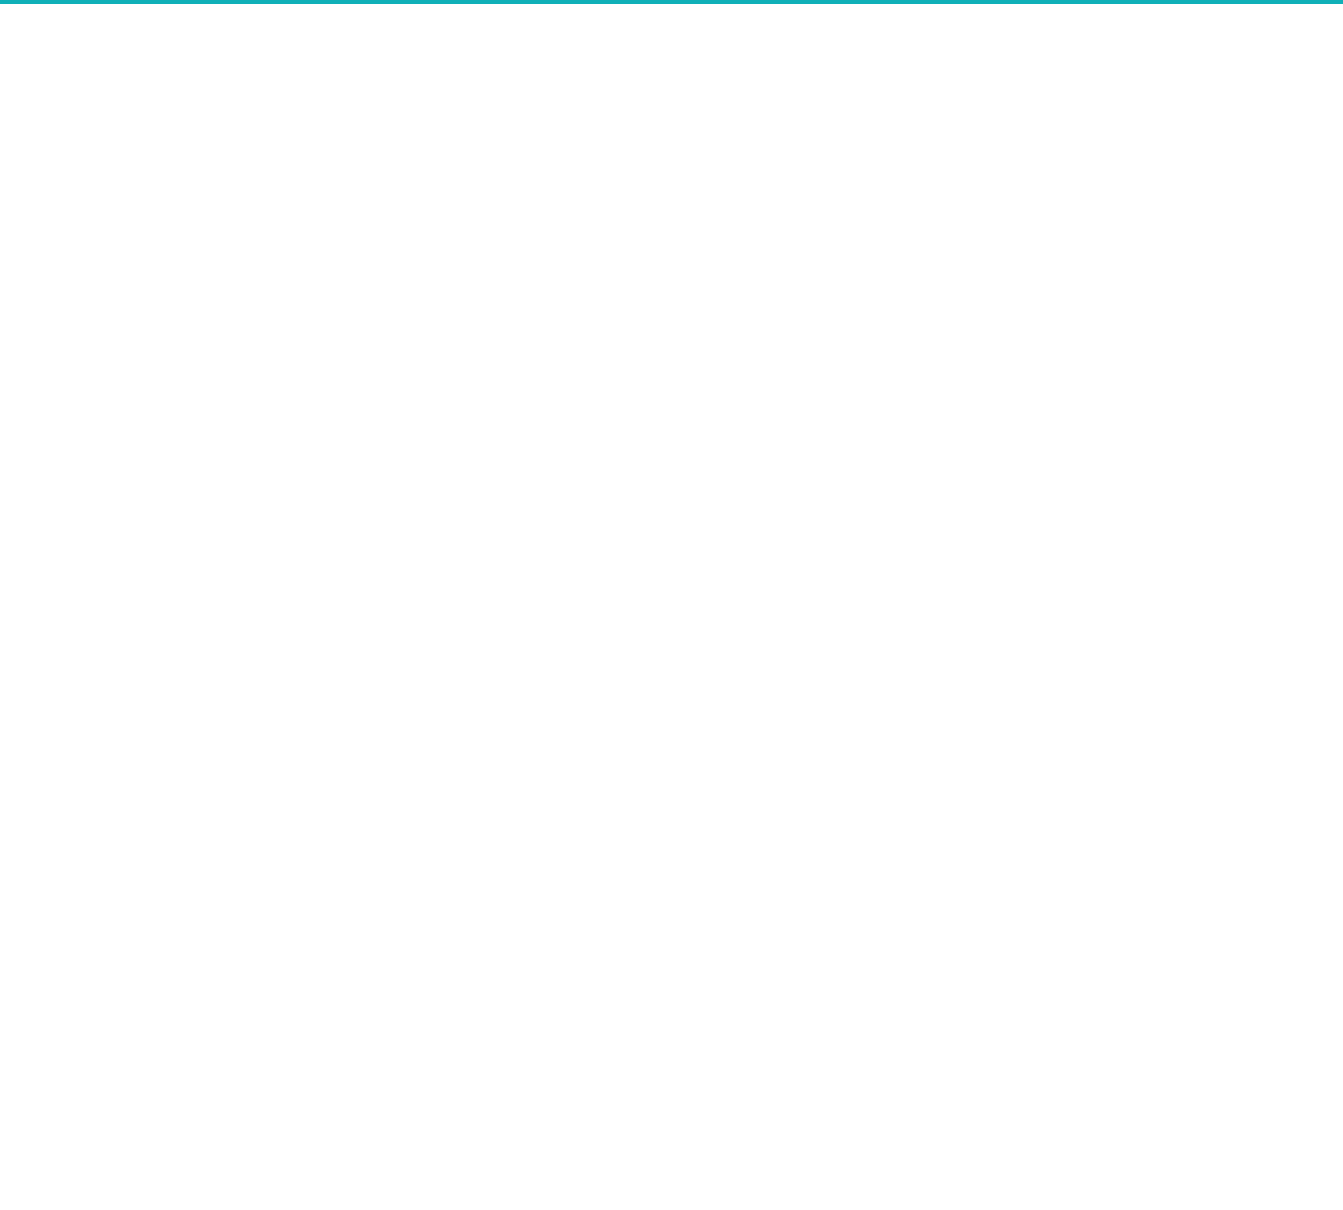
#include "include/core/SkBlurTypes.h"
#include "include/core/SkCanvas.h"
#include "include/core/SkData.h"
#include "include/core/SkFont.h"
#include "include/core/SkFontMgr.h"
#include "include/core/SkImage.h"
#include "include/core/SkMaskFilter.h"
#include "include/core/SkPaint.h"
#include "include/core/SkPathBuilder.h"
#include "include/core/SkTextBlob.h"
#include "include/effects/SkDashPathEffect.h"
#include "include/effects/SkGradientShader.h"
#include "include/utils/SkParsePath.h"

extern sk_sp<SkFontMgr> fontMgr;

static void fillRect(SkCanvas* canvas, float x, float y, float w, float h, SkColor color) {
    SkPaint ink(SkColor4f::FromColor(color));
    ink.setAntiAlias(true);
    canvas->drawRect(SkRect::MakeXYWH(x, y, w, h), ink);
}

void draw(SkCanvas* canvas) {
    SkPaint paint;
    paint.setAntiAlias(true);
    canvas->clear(0xFFFFFFFF);
    fillRect(canvas, 0, 0, 1343, 4, 0xFF10B0B8);
}
